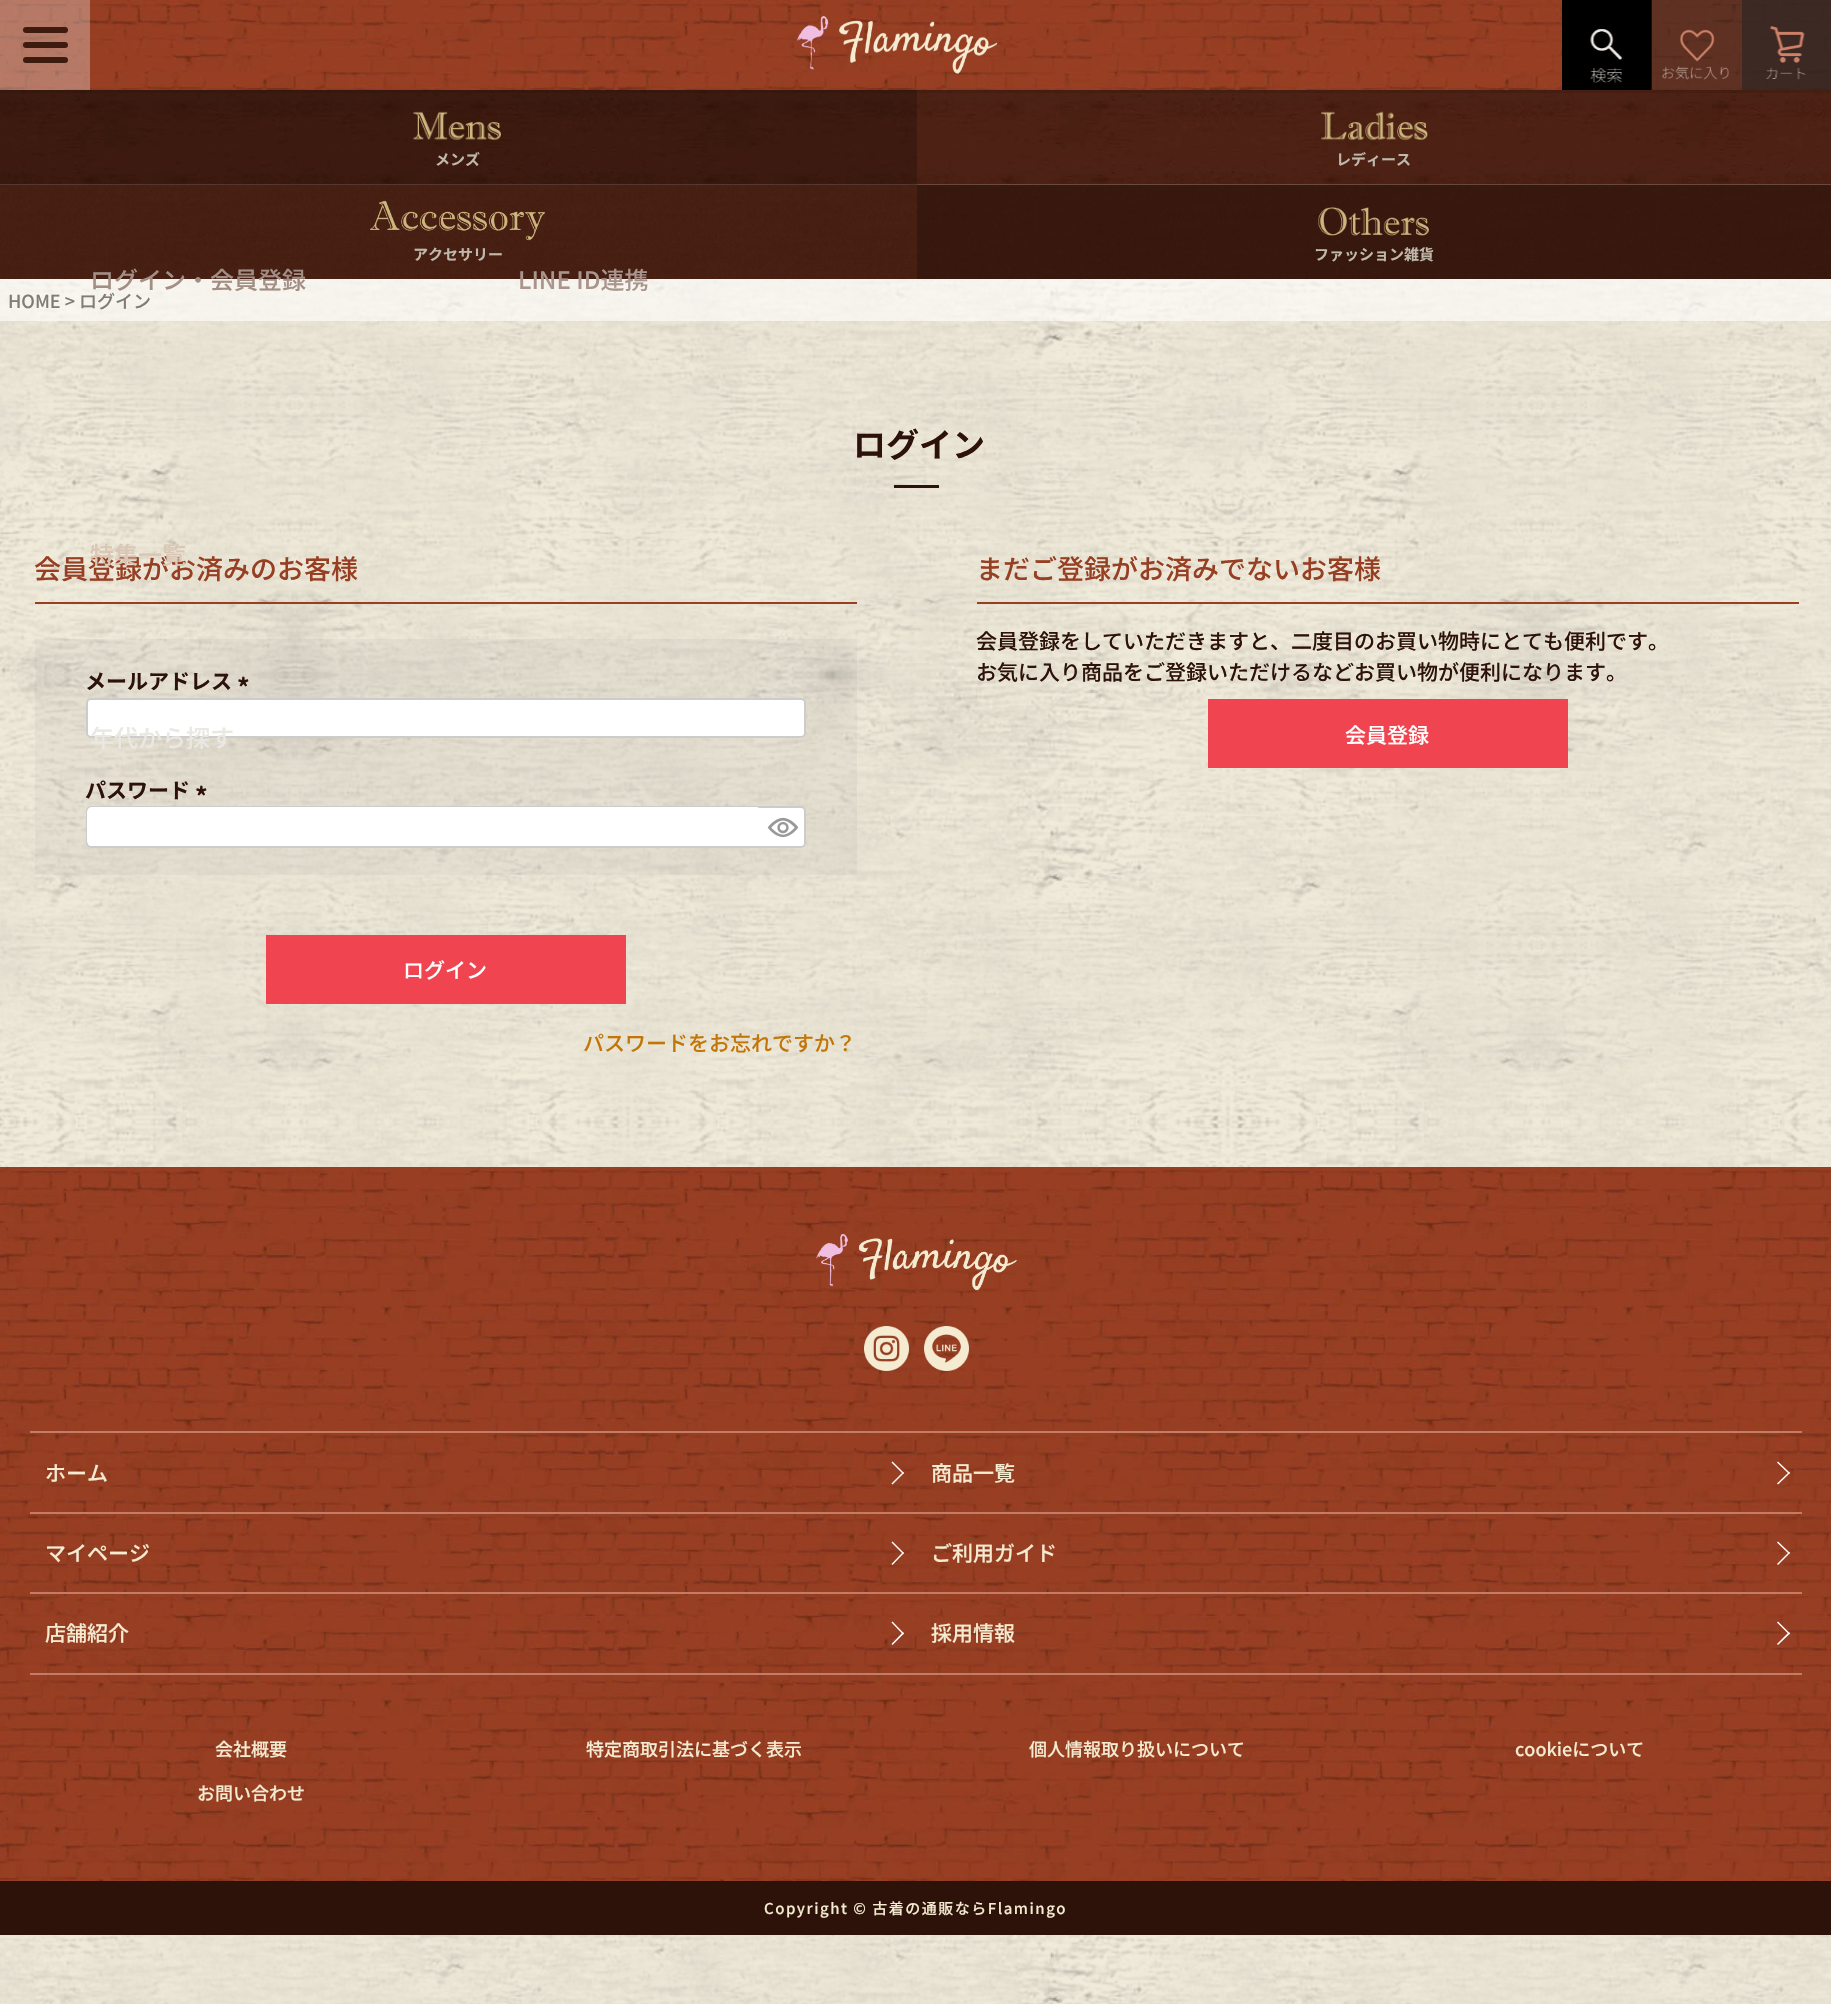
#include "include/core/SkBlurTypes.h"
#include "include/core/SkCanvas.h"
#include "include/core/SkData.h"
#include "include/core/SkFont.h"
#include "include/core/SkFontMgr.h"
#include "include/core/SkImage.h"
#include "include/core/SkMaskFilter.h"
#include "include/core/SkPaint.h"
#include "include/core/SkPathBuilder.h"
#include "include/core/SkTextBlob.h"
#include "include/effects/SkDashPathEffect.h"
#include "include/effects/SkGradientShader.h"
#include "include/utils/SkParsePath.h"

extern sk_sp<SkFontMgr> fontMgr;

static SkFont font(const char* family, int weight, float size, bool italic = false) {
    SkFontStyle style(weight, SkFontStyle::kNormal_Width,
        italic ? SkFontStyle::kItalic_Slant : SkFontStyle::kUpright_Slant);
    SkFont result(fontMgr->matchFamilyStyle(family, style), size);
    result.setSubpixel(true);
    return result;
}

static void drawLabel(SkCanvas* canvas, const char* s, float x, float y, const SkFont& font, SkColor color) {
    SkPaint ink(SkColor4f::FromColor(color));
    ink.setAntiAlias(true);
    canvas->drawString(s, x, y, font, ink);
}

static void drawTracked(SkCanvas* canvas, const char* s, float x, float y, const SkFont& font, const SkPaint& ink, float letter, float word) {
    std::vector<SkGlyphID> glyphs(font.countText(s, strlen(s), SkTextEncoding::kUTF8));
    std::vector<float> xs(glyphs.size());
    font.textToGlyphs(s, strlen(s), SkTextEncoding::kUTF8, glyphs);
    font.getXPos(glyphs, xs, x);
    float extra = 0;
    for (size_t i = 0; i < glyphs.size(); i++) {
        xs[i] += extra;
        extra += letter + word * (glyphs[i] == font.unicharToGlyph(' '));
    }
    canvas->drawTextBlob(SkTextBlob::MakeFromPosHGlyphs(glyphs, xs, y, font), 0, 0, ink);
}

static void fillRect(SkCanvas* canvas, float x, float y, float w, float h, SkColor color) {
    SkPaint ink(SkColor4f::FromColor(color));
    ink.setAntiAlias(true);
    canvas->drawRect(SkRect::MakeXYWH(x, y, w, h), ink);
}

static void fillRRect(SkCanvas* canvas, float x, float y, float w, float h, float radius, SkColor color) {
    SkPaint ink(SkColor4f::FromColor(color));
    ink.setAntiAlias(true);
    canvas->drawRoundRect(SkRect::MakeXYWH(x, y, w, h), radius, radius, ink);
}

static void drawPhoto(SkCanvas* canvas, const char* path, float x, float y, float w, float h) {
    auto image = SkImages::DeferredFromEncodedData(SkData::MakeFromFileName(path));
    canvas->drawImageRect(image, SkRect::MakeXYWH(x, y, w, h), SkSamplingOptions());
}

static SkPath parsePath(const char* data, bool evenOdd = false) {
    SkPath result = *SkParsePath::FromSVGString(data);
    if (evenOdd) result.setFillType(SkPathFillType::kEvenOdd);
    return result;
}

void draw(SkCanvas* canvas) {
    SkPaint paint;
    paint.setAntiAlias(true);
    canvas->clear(0xFFFFFFFF);
    drawPhoto(canvas, "assets/img1.png", 0, 184, 1831, 1820);
    drawPhoto(canvas, "assets/img2.png", 0, 90, 1831, 95);
    drawPhoto(canvas, "assets/img5.png", 0, 184, 1831, 95);
    fillRect(canvas, 0, 90, 917, 95, 0x4D000000);
    drawPhoto(canvas, "assets/img3.png", 413, 111, 88, 30);
    SkFont font1 = font("Noto Sans JP", 700, 15);
    drawLabel(canvas, "メンズ", 435, 165, font1, 0xFFBFB9AC);
    fillRect(canvas, 917, 90, 914, 95, 0x1A000000);
    drawPhoto(canvas, "assets/img4.png", 1321, 111, 107, 30);
    drawLabel(canvas, "レディース", 1336, 165, font1, 0xFFBFB9AC);
    fillRect(canvas, 0, 185, 917, 94, 0x1A000000);
    drawPhoto(canvas, "assets/img6.png", 370, 200, 175, 41);
    drawLabel(canvas, "アクセサリー", 413, 260, font1, 0xFFBFB9AC);
    fillRect(canvas, 917, 185, 914, 94, 0x4D000000);
    drawPhoto(canvas, "assets/img7.png", 1318, 207, 111, 29);
    drawLabel(canvas, "ファッション雑貨", 1314, 260, font1, 0xFFBFB9AC);
    fillRect(canvas, 0, 279, 1831, 42, 0x99FFFFFF);
    SkFont font2 = font("Noto Sans JP", 500, 18);
    drawLabel(canvas, "HOME > ログイン", 8, 308, font2, 0xFF807B73);
    paint.setColor(0x1A000000);
    canvas->drawPath(parsePath("M0 90V93H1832V3V90Z"), paint);
    drawPhoto(canvas, "assets/img8.png", 0, 0, 1831, 90);
    fillRect(canvas, 0, 0, 90, 90, 0x4DFFFFFF);
    fillRRect(canvas, 23, 27, 45, 6, 3, 0xFF3E1B0F);
    fillRRect(canvas, 23, 42, 45, 6, 3, 0xFF3E1B0F);
    fillRRect(canvas, 23, 57, 45, 6, 3, 0xFF3E1B0F);
    drawPhoto(canvas, "assets/img9.png", 797, 16, 201, 58);
    fillRect(canvas, 1651, 0, 1, 90, 0xFF3E1E13);
    drawPhoto(canvas, "assets/img10.png", 1562, 0, 90, 90);
    fillRect(canvas, 1652, 0, 90, 90, 0x7A222222);
    drawPhoto(canvas, "assets/img11.png", 1662, 29, 67, 51);
    fillRect(canvas, 1742, 0, 89, 90, 0xC7222222);
    drawPhoto(canvas, "assets/img12.png", 1766, 26, 40, 54);
    SkFont font3 = font("Noto Sans JP", 500, 24);
    drawLabel(canvas, "ログイン・会員登録", 90, 289, font3, 0xFFA38E85);
    drawLabel(canvas, "LINE ID連携", 518, 289, font3, 0xFFA9958D);
    SkFont font4 = font("Noto Sans JP", 500, 27);
    drawLabel(canvas, "会員登録がお済みのお客様", 34, 579, font4, 0xFF973F23);
    drawLabel(canvas, "特集一覧", 90, 564, font3, 0xFFDAC6B5);
    fillRect(canvas, 35, 639, 822, 236, 0x147E7E7E);
    paint.setColor(0xFFFFFFFF);
    canvas->drawRoundRect(SkRect::MakeXYWH(87, 699, 718, 38), 4, 4, paint);
    paint.setStroke(true);
    paint.setStrokeWidth(2);
    paint.setColor(0xFFCCCCCC);
    canvas->drawRoundRect(SkRect::MakeXYWH(87, 699, 718, 38), 4, 4, paint);
    drawLabel(canvas, "年代から探す", 90, 747, font3, 0xFFEAE8E2);
    SkFont font5 = font("Noto Sans JP", 700, 33);
    drawLabel(canvas, "ログイン", 853, 457, font5, 0xFF2C120A);
    fillRect(canvas, 894, 485, 45, 3, 0xFF2C120A);
    fillRect(canvas, 35, 602, 822, 2, 0xFF973F23);
    SkFont font6 = font("Noto Sans JP", 700, 21);
    drawLabel(canvas, "メールアドレス", 85, 689, font6, 0xFF2C120A);
    SkFont font7 = font("Noto Sans JP", 700, 25);
    drawLabel(canvas, "*", 237, 697, font7, 0xFF2C120A);
    drawLabel(canvas, "パスワード", 85, 798, font6, 0xFF2C120A);
    drawLabel(canvas, "*", 195, 806, font7, 0xFF2C120A);
    paint.setStroke(false);
    paint.setColor(0xFFFFFFFF);
    canvas->drawRoundRect(SkRect::MakeXYWH(87, 807, 718, 40), 4, 4, paint);
    paint.setStroke(true);
    paint.setColor(0xFFCCCCCC);
    canvas->drawRoundRect(SkRect::MakeXYWH(87, 807, 718, 40), 4, 4, paint);
    fillRRect(canvas, 87, 807, 674, 39, 5, 0xFFFFFFFF);
    drawPhoto(canvas, "assets/img13.png", 767, 817, 32, 21);
    fillRect(canvas, 266, 935, 360, 69, 0xFFF04550);
    SkFont font8 = font("Noto Sans JP", 500, 21);
    drawLabel(canvas, "ログイン", 403, 978, font8, 0xFFFFFFFF);
    drawLabel(canvas, "パスワードをお忘れですか？", 583, 1051, font8, 0xFFC27608);
    fillRect(canvas, 977, 602, 822, 2, 0xFF973F23);
    drawLabel(canvas, "まだご登録がお済みでないお客様", 976, 579, font4, 0xFF973F23);
    drawLabel(canvas, "会員登録をしていただきますと、二度目のお買い物時にとても便利です。", 976, 649, font8, 0xFF2C120A);
    drawLabel(canvas, "お気に入り商品をご登録いただけるなどお買い物が便利になります。", 976, 680, font8, 0xFF2C120A);
    fillRect(canvas, 1208, 699, 360, 69, 0xFFF04550);
    drawLabel(canvas, "会員登録", 1345, 743, font8, 0xFFFFFFFF);
    drawPhoto(canvas, "assets/img14.png", 0, 1167, 1831, 714);
    drawPhoto(canvas, "assets/img15.png", 816, 1234, 201, 57);
    drawPhoto(canvas, "assets/img16.png", 864, 1326, 45, 45);
    drawPhoto(canvas, "assets/img17.png", 924, 1326, 45, 45);
    fillRect(canvas, 30, 1431, 1772, 2, 0xFFC37D67);
    fillRect(canvas, 30, 1512, 1772, 2, 0xFFC37D67);
    drawLabel(canvas, "ホーム", 45, 1481, font8, 0xFFF5EBD1);
    paint.setStroke(false);
    paint.setColor(0xFFFFFFFF);
    canvas->drawPath(parsePath("M892.5 1461.5L904 1473L903 1474L891.5 1462.5Z"), paint);
    canvas->drawPath(parsePath("M903 1472L904 1473L892.5 1484.5L891.5 1483.5Z"), paint);
    drawLabel(canvas, "商品一覧", 931, 1481, font8, 0xFFF5EBD1);
    canvas->drawPath(parsePath("M1778 1461.5L1790 1473L1789 1474L1777 1462.5Z"), paint);
    canvas->drawPath(parsePath("M1789 1472L1790 1473L1778 1484.5L1777 1483.5Z"), paint);
    fillRect(canvas, 30, 1592, 1772, 2, 0xFFC37D67);
    drawLabel(canvas, "マイページ", 45, 1561, font8, 0xFFF5EBD1);
    canvas->drawPath(parsePath("M892.5 1541.5L904 1553L903 1554L891.5 1542.5Z"), paint);
    canvas->drawPath(parsePath("M903 1552L904 1553L892.5 1565L891.5 1564Z"), paint);
    drawLabel(canvas, "ご利用ガイド", 931, 1561, font8, 0xFFF5EBD1);
    canvas->drawPath(parsePath("M1778 1541.5L1790 1553L1789 1554L1777 1542.5Z"), paint);
    canvas->drawPath(parsePath("M1789 1552L1790 1553L1778 1565L1777 1564Z"), paint);
    fillRect(canvas, 30, 1673, 1772, 2, 0xFFC37D67);
    drawLabel(canvas, "店舗紹介", 45, 1641, font8, 0xFFF5EBD1);
    canvas->drawPath(parsePath("M892.5 1621.5L904 1633.5L903 1634.5L891.5 1622.5Z"), paint);
    canvas->drawPath(parsePath("M903 1632L904 1633.5L892.5 1645L891.5 1644Z"), paint);
    drawLabel(canvas, "採用情報", 931, 1641, font8, 0xFFF5EBD1);
    canvas->drawPath(parsePath("M1778 1621.5L1790 1633.5L1789 1634.5L1777 1622.5Z"), paint);
    canvas->drawPath(parsePath("M1789 1632L1790 1633.5L1778 1645L1777 1644Z"), paint);
    drawLabel(canvas, "会社概要", 215, 1756, font2, 0xFFF5EBD1);
    drawLabel(canvas, "特定商取引法に基づく表示", 586, 1756, font2, 0xFFF5EBD1);
    drawLabel(canvas, "個人情報取り扱いについて", 1029, 1756, font2, 0xFFF5EBD1);
    drawLabel(canvas, "cookieについて", 1515, 1756, font2, 0xFFF5EBD1);
    drawLabel(canvas, "お問い合わせ", 197, 1800, font2, 0xFFF5EBD1);
    fillRect(canvas, 0, 1881, 1831, 54, 0xFF2D120A);
    SkFont font9 = font("Noto Sans JP", 500, 15);
    paint.setColor(0xFFF5EBD1);
    drawTracked(canvas, "Copyright © 古着の通販ならFlamingo", 764, 1914, font9, paint, 1.5f, 0);
}
